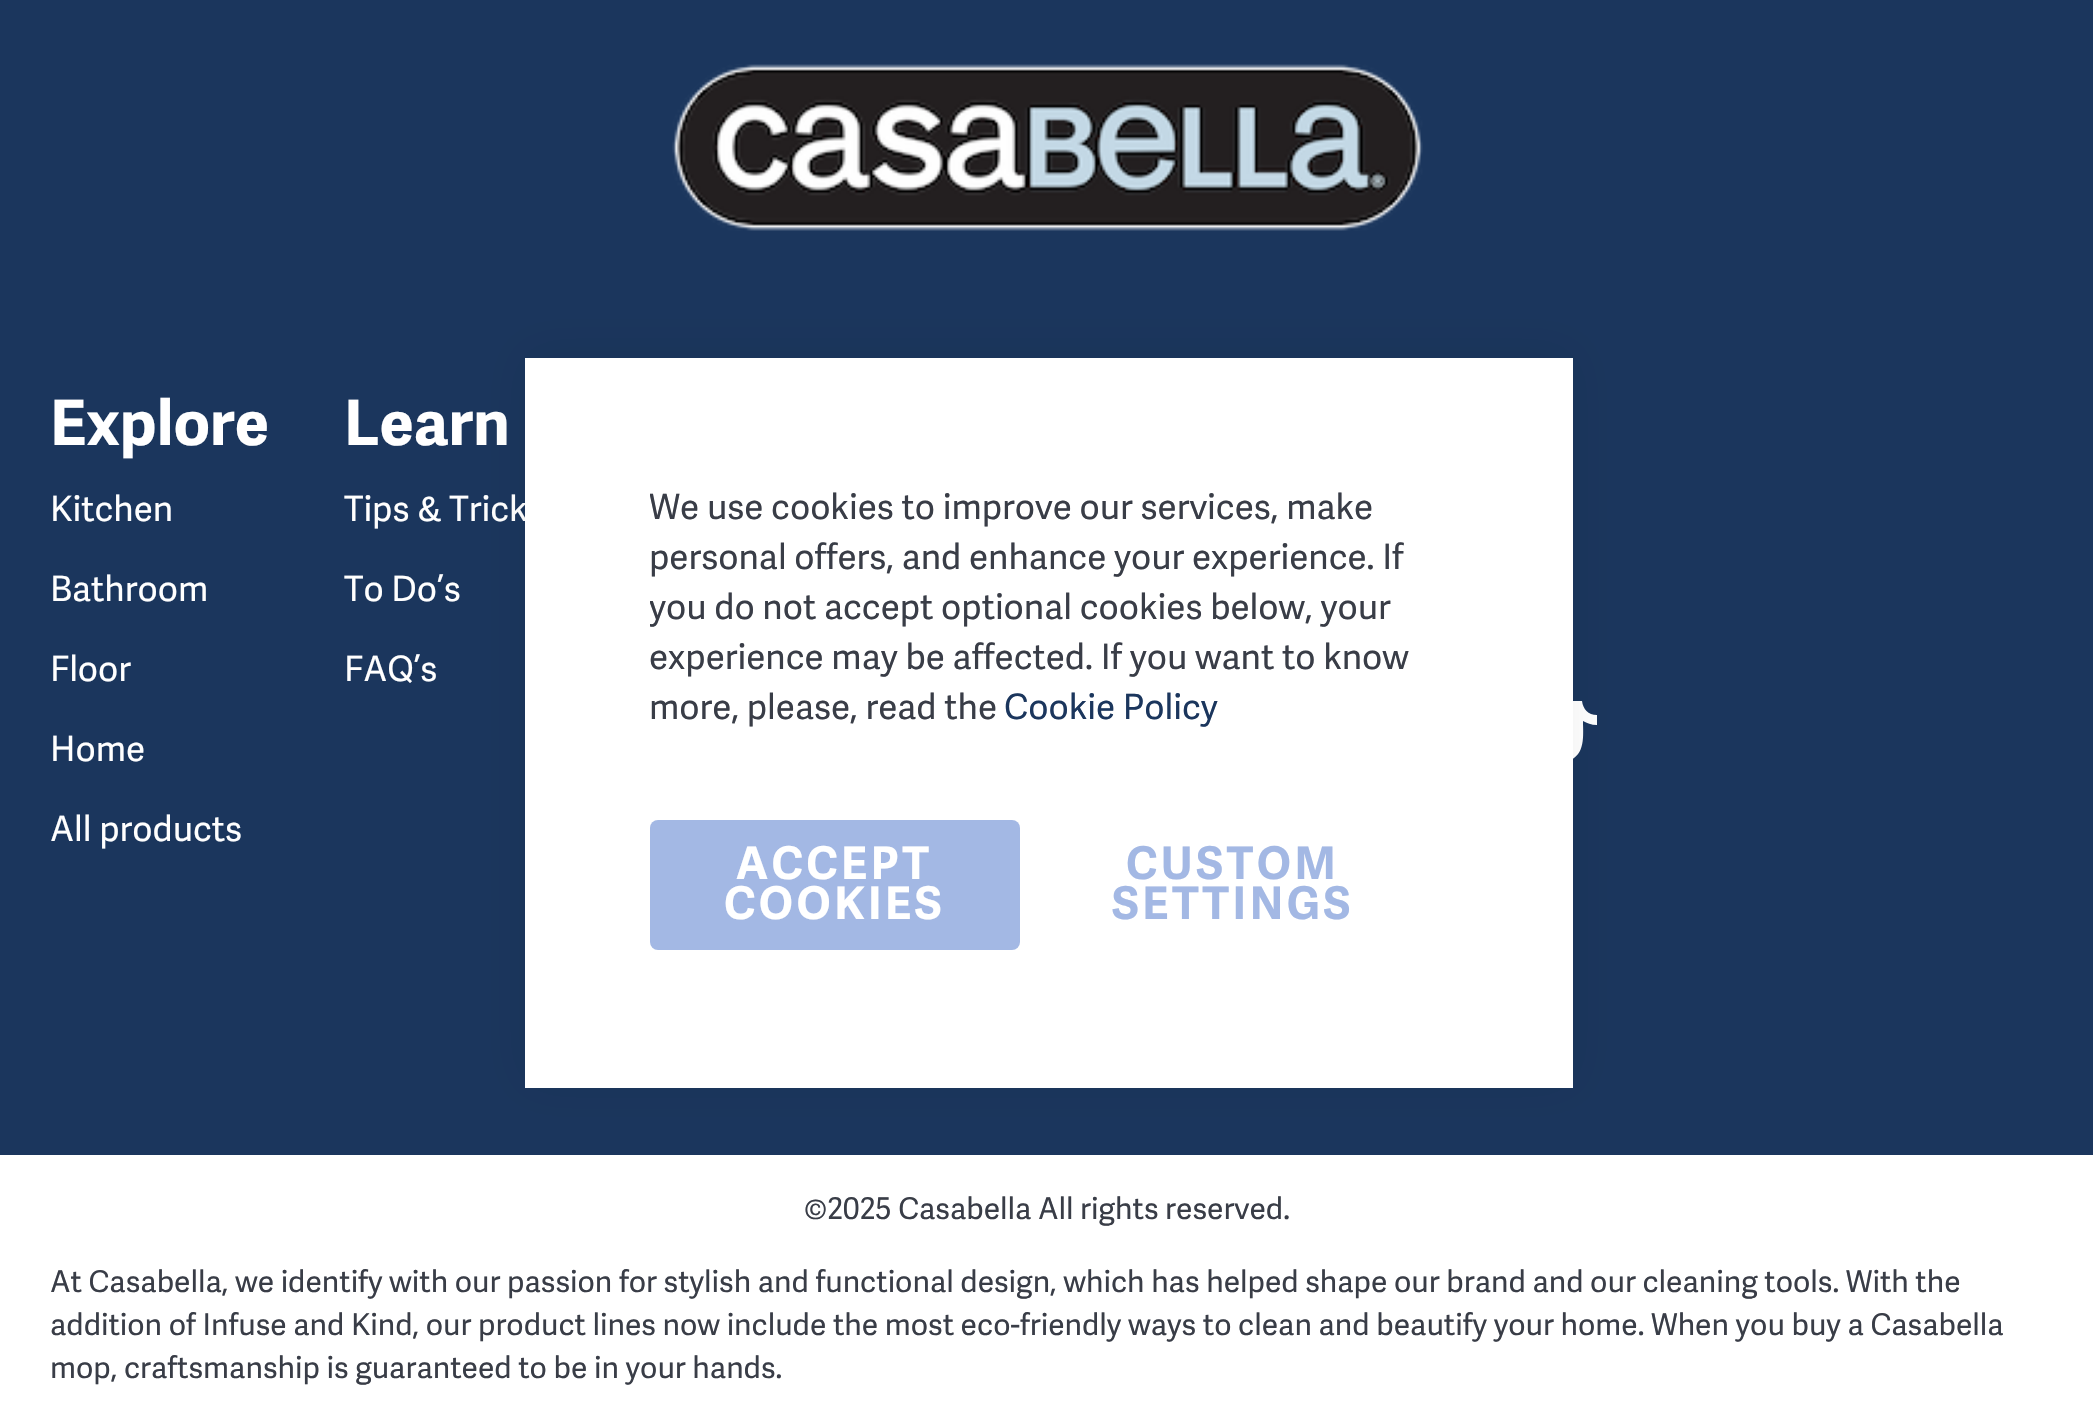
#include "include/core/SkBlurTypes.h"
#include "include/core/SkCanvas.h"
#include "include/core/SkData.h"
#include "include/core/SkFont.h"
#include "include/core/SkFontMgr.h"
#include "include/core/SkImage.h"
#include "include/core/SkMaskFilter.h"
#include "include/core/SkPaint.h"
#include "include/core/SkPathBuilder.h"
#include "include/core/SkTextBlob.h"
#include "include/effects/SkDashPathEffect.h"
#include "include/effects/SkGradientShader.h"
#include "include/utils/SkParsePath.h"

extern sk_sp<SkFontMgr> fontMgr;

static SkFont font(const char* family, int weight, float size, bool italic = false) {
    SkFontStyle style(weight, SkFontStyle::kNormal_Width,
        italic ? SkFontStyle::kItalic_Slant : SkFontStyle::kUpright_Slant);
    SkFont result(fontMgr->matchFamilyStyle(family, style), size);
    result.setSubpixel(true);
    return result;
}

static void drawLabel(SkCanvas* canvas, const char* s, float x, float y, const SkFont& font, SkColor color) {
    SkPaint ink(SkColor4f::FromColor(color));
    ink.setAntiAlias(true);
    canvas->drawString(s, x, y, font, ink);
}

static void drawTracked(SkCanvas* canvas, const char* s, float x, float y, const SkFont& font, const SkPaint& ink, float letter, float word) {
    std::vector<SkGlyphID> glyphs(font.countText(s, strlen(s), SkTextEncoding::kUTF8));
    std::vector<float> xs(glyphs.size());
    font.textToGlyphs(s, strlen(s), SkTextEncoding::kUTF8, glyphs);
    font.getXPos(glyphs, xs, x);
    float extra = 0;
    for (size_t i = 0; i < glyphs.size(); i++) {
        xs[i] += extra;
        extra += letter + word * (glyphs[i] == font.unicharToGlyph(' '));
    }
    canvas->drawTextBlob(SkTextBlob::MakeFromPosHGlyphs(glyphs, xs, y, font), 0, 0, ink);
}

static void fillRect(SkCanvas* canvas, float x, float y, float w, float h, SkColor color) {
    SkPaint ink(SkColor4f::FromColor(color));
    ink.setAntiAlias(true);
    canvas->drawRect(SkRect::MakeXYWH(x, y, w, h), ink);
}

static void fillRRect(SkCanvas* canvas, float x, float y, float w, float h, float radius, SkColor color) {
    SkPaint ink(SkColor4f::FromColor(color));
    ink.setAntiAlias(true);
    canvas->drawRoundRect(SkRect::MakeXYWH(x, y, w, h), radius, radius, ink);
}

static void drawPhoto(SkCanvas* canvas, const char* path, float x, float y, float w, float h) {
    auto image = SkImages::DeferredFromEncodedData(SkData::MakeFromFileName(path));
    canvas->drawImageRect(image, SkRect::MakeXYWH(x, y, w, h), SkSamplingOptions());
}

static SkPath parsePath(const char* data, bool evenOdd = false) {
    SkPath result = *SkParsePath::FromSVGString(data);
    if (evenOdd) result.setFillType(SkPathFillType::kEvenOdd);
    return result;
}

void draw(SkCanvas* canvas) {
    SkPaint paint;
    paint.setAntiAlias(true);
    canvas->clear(0xFFFFFFFF);
    fillRect(canvas, 0, 0, 2093, 1155, 0xFF1B365D);
    drawPhoto(canvas, "assets/img1.png", 672, 64, 751, 167);
    SkFont font1 = font("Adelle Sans", 700, 62.5f);
    drawLabel(canvas, "Explore", 50, 445, font1, 0xFFFFFFFF);
    SkFont font2 = font("Adelle Sans", 400, 35);
    drawLabel(canvas, "Kitchen", 50, 521, font2, 0xFFFFFFFF);
    drawLabel(canvas, "Bathroom", 50, 601, font2, 0xFFFFFFFF);
    drawLabel(canvas, "Floor", 50, 681, font2, 0xFFFFFFFF);
    drawLabel(canvas, "Home", 50, 761, font2, 0xFFFFFFFF);
    drawLabel(canvas, "All products", 50, 841, font2, 0xFFFFFFFF);
    drawLabel(canvas, "Learn", 344, 445, font1, 0xFFFFFFFF);
    drawLabel(canvas, "Tips & Trick", 344, 521, font2, 0xFFFFFFFF);
    drawLabel(canvas, "To Do’s", 344, 601, font2, 0xFFFFFFFF);
    drawLabel(canvas, "FAQ’s", 344, 681, font2, 0xFFFFFFFF);
    paint.setColor(0xFFFFFFFF);
    canvas->drawPath(parsePath("M1582 701C1583 709 1588 715 1597 715V725C1591 725 1587 723 1583 721C1583 735 1586 755 1568 761C1543 768 1534 724 1566 723V733C1561 734 1556 735 1555 740C1553 752 1571 757 1573 741V701Z"), paint);
    SkFont font3 = font("Adelle Sans", 400, 30);
    drawLabel(canvas, "©2025 Casabella All rights reserved.", 804, 1219, font3, 0xFF393D47);
    drawLabel(canvas, "At Casabella, we identify with our passion for stylish and functional design, which has helped shape our brand and our cleaning tools. With the", 50, 1292, font3, 0xFF393D47);
    drawLabel(canvas, "addition of Infuse and Kind, our product lines now include the most eco-friendly ways to clean and beautify your home. When you buy a Casabella", 50, 1335, font3, 0xFF393D47);
    drawLabel(canvas, "mop, craftsmanship is guaranteed to be in your hands.", 50, 1378, font3, 0xFF393D47);
    paint.setColor(0x0F000000);
    paint.setMaskFilter(SkMaskFilter::MakeBlur(kNormal_SkBlurStyle, 22.5f));
    canvas->drawRect(SkRect::MakeXYWH(525, 353, 1048, 730), paint);
    paint.setMaskFilter(nullptr);
    fillRect(canvas, 525, 358, 1048, 730, 0xFFFFFFFF);
    canvas->save();
    canvas->clipRect(SkRect::MakeXYWH(650, 483, 798, 250));
    drawLabel(canvas, "We use cookies to improve our services, make", 649, 519, font2, 0xFF393D47);
    canvas->restore();
    drawLabel(canvas, "personal offers, and enhance your experience. If", 649, 569, font2, 0xFF393D47);
    canvas->save();
    canvas->clipRect(SkRect::MakeXYWH(650, 483, 798, 250));
    drawLabel(canvas, "you do not accept optional cookies below, your", 649, 619, font2, 0xFF393D47);
    canvas->restore();
    drawLabel(canvas, "experience may be affected. If you want to know", 649, 669, font2, 0xFF393D47);
    drawLabel(canvas, "more, please, read the", 649, 719, font2, 0xFF393D47);
    drawLabel(canvas, "Cookie Policy", 1004, 719, font2, 0xFF1B365D);
    fillRRect(canvas, 650, 820, 370, 130, 8, 0xFFA3B8E4);
    SkFont font4 = font("Adelle Sans", 700, 45);
    paint.setColor(0xFFFFFFFF);
    drawTracked(canvas, "ACCEPT", 736, 879, font4, paint, 3.5f, 0);
    drawTracked(canvas, "COOKIES", 724, 919, font4, paint, 3.5f, 0);
    paint.setColor(0xFFA3B8E4);
    drawTracked(canvas, "CUSTOM", 1126, 879, font4, paint, 3.5f, 0);
    drawTracked(canvas, "SETTINGS", 1112, 919, font4, paint, 3.5f, 0);
}
